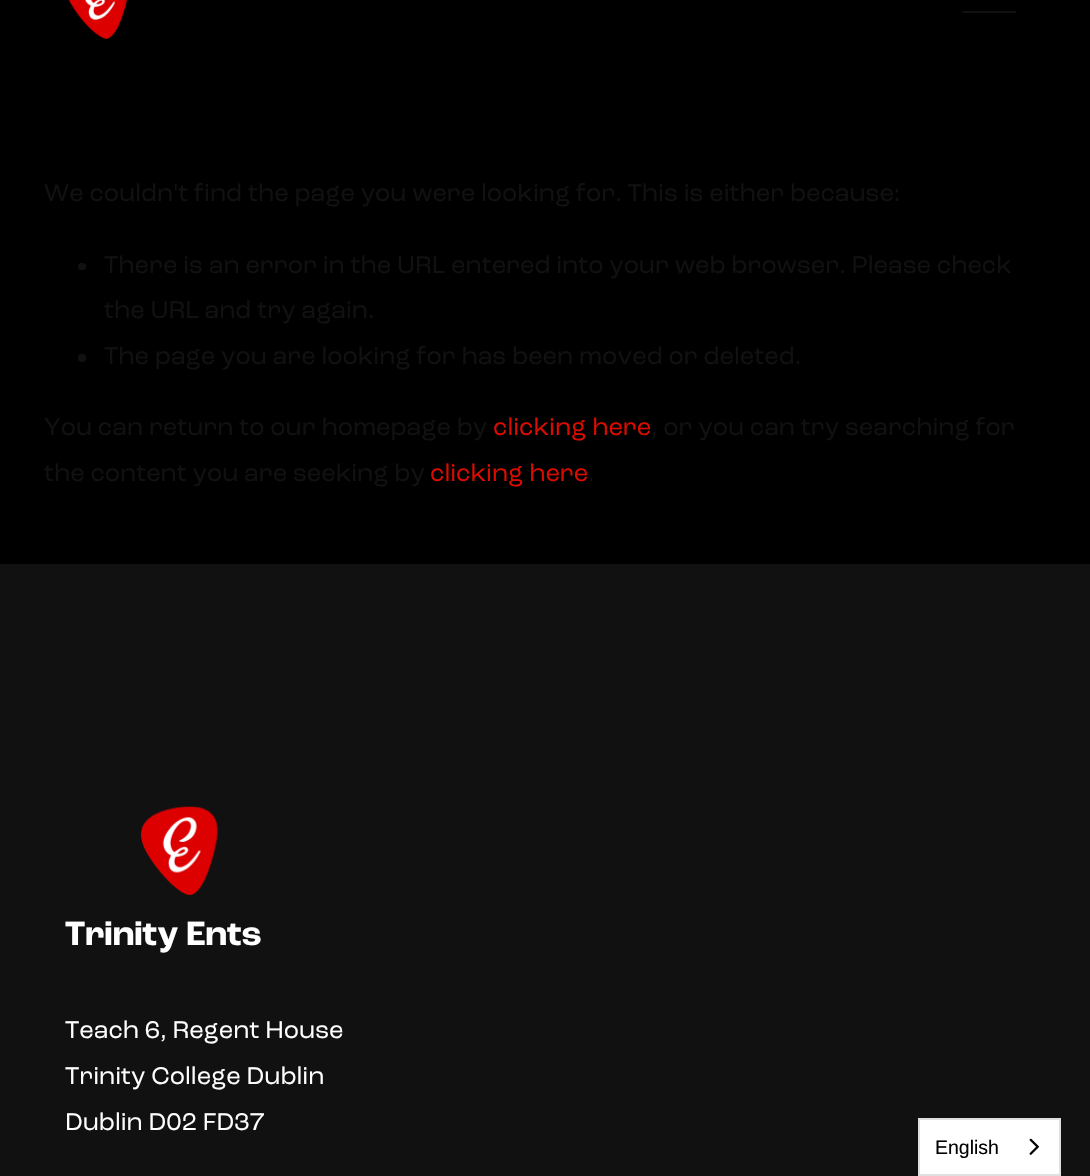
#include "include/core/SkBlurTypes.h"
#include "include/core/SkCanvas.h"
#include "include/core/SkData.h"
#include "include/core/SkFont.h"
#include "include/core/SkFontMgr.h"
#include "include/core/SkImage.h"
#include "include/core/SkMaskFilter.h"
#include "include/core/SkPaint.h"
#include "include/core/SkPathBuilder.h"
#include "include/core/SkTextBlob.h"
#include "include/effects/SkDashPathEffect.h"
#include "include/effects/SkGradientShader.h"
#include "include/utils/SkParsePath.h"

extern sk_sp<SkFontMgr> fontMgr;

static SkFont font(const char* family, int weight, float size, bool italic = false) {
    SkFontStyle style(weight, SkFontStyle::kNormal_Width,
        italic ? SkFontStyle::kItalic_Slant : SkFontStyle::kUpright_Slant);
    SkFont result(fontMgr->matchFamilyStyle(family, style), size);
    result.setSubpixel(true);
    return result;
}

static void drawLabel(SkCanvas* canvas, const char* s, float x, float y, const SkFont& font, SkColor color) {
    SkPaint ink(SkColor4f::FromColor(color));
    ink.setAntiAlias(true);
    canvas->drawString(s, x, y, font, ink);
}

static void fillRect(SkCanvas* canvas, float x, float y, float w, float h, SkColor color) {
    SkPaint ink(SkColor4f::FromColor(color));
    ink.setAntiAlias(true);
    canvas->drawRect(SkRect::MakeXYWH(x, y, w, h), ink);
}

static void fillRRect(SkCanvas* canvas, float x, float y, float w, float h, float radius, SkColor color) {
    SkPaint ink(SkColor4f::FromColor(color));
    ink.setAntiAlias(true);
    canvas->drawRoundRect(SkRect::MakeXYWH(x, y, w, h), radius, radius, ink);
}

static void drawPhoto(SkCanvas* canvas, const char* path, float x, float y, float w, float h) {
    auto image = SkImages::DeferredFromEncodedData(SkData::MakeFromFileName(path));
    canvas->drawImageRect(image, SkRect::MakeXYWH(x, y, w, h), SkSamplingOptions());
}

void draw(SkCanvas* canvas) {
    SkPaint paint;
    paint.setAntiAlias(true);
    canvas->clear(0xFF000000);
    drawPhoto(canvas, "assets/img1.png", 68, 0, 60, 39);
    fillRect(canvas, 963, 11, 53, 2, 0xFF111111);
    SkFont font1 = font("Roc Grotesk", 400, 25.4f);
    drawLabel(canvas, "We couldn't find the page you were looking for. This is either because:", 44, 201, font1, 0xFF111111);
    fillRRect(canvas, 78, 263, 8, 7, 3.5f, 0xFF111111);
    drawLabel(canvas, "There is an error in the URL entered into your web browser. Please check", 104, 273, font1, 0xFF111111);
    drawLabel(canvas, "the URL and try again.", 104, 318, font1, 0xFF111111);
    paint.setColor(0xFF111111);
    canvas->drawCircle(82, 358, 4, paint);
    drawLabel(canvas, "The page you are looking for has been moved or deleted.", 104, 364, font1, 0xFF111111);
    drawLabel(canvas, "You can return to our homepage by", 44, 435, font1, 0xFF111111);
    drawLabel(canvas, "clicking here", 493, 435, font1, 0xFFDC0B00);
    drawLabel(canvas, ", or you can try searching for", 651, 435, font1, 0xFF111111);
    drawLabel(canvas, "the content you are seeking by", 44, 481, font1, 0xFF111111);
    drawLabel(canvas, "clicking here", 430, 481, font1, 0xFFDC0B00);
    drawLabel(canvas, ".", 588, 481, font1, 0xFF111111);
    fillRect(canvas, 0, 564, 1090, 612, 0xFF111111);
    drawPhoto(canvas, "assets/img2.png", 141, 806, 77, 89);
    SkFont font2 = font("Roc Grotesk", 700, 35.25f);
    drawLabel(canvas, "Trinity Ents", 65, 945, font2, 0xFFFFFFFF);
    drawLabel(canvas, "Teach 6, Regent House", 65, 1038, font1, 0xFFFFFFFF);
    drawLabel(canvas, "Trinity College Dublin", 65, 1084, font1, 0xFFFFFFFF);
    drawLabel(canvas, "Dublin D02 FD37", 65, 1130, font1, 0xFFFFFFFF);
    paint.setColor(0xFFFFFFFF);
    canvas->drawRect(SkRect::MakeXYWH(919, 1119, 141, 56), paint);
    paint.setStroke(true);
    paint.setStrokeWidth(2);
    paint.setColor(0xFFE0E0E0);
    canvas->drawRect(SkRect::MakeXYWH(919, 1119, 141, 56), paint);
    SkFont font3 = font("Liberation Sans", 400, 19.5f);
    drawLabel(canvas, "English", 935, 1154, font3, 0xFF000000);
    drawPhoto(canvas, "assets/img3.png", 1029, 1138, 10, 17);
}
